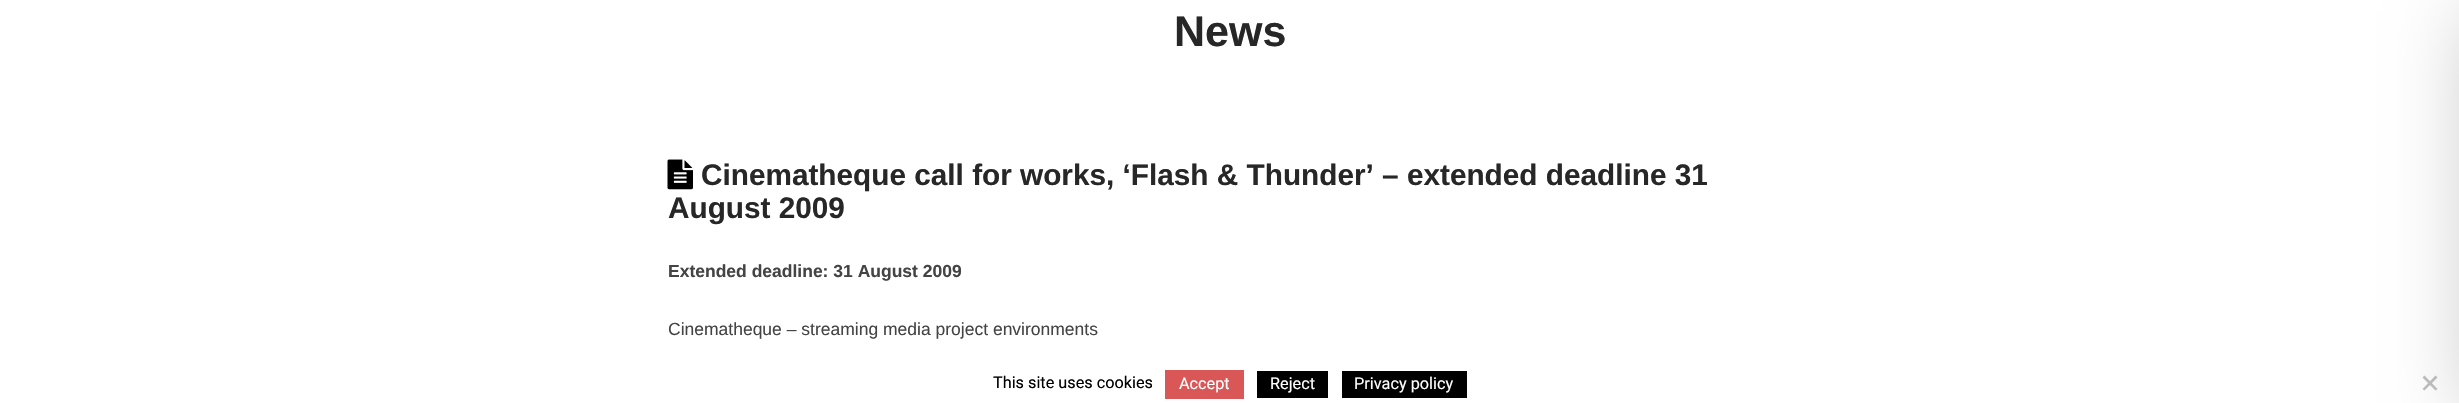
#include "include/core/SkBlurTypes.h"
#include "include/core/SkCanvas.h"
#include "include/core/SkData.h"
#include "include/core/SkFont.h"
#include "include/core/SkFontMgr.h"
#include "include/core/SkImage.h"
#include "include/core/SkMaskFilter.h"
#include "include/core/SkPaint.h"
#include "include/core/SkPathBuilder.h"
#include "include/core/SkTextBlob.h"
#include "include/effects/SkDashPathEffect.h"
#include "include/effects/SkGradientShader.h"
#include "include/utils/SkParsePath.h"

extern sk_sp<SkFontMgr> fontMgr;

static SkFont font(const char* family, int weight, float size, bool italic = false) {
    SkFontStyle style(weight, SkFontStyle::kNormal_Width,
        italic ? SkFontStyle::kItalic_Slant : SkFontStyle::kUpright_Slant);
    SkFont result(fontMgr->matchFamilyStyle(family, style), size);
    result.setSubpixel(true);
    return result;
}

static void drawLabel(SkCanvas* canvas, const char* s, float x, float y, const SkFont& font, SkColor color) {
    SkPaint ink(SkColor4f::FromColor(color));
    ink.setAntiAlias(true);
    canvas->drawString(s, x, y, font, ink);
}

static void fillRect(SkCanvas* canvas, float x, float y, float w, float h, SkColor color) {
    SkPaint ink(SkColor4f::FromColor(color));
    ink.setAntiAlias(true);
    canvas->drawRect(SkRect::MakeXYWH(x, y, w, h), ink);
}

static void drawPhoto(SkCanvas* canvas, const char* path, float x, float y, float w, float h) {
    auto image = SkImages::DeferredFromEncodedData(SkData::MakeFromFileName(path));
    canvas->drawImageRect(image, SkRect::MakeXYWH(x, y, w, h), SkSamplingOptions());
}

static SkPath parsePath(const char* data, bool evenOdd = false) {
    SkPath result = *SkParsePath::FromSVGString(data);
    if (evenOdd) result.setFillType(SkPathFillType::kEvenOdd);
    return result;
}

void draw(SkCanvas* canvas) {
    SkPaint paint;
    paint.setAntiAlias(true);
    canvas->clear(0xFFFFFFFF);
    SkFont font1 = font("Liberation Sans", 700, 43);
    drawLabel(canvas, "News", 1174, 46, font1, 0xFF272727);
    drawPhoto(canvas, "assets/img1.png", 667, 159, 26, 31);
    SkFont font2 = font("Liberation Sans", 700, 29.75f);
    drawLabel(canvas, "Cinematheque call for works, ‘Flash & Thunder’ – extended deadline 31", 701, 185, font2, 0xFF272727);
    drawLabel(canvas, "August 2009", 668, 218, font2, 0xFF272727);
    SkFont font3 = font("Liberation Sans", 700, 17.5f);
    drawLabel(canvas, "Extended deadline: 31 August 2009", 668, 277, font3, 0xFF444444);
    SkFont font4 = font("Liberation Sans", 400, 17.5f);
    drawLabel(canvas, "Cinematheque – streaming media project environments", 668, 335, font4, 0xFF444444);
    paint.setColor(0xFFC0C0C0);
    canvas->drawPath(parsePath("M2435.5 375.5L2437.5 377.5L2424.5 390.5L2422.5 389Z"), paint);
    canvas->drawPath(parsePath("M2422.5 377.5L2424.5 375.5L2437.5 389L2435.5 390.5Z"), paint);
    paint.setColor(0x33000000);
    paint.setMaskFilter(SkMaskFilter::MakeBlur(kNormal_SkBlurStyle, 37.5f));
    canvas->drawRect(SkRect::MakeXYWH(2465, 13, 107, 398), paint);
    paint.setMaskFilter(nullptr);
    SkFont font5 = font("Roboto", 400, 16.25f);
    drawLabel(canvas, "This site uses cookies", 993, 388, font5, 0xFF000000);
    fillRect(canvas, 1165, 370, 79, 29, 0xFFD95757);
    drawLabel(canvas, "Accept", 1179, 389, font5, 0xFFFFFFFF);
    fillRect(canvas, 1257, 371, 71, 27, 0xFF000000);
    drawLabel(canvas, "Reject", 1270, 389, font5, 0xFFFFFFFF);
    fillRect(canvas, 1342, 371, 125, 27, 0xFF000000);
    drawLabel(canvas, "Privacy policy", 1354, 389, font5, 0xFFFFFFFF);
}
